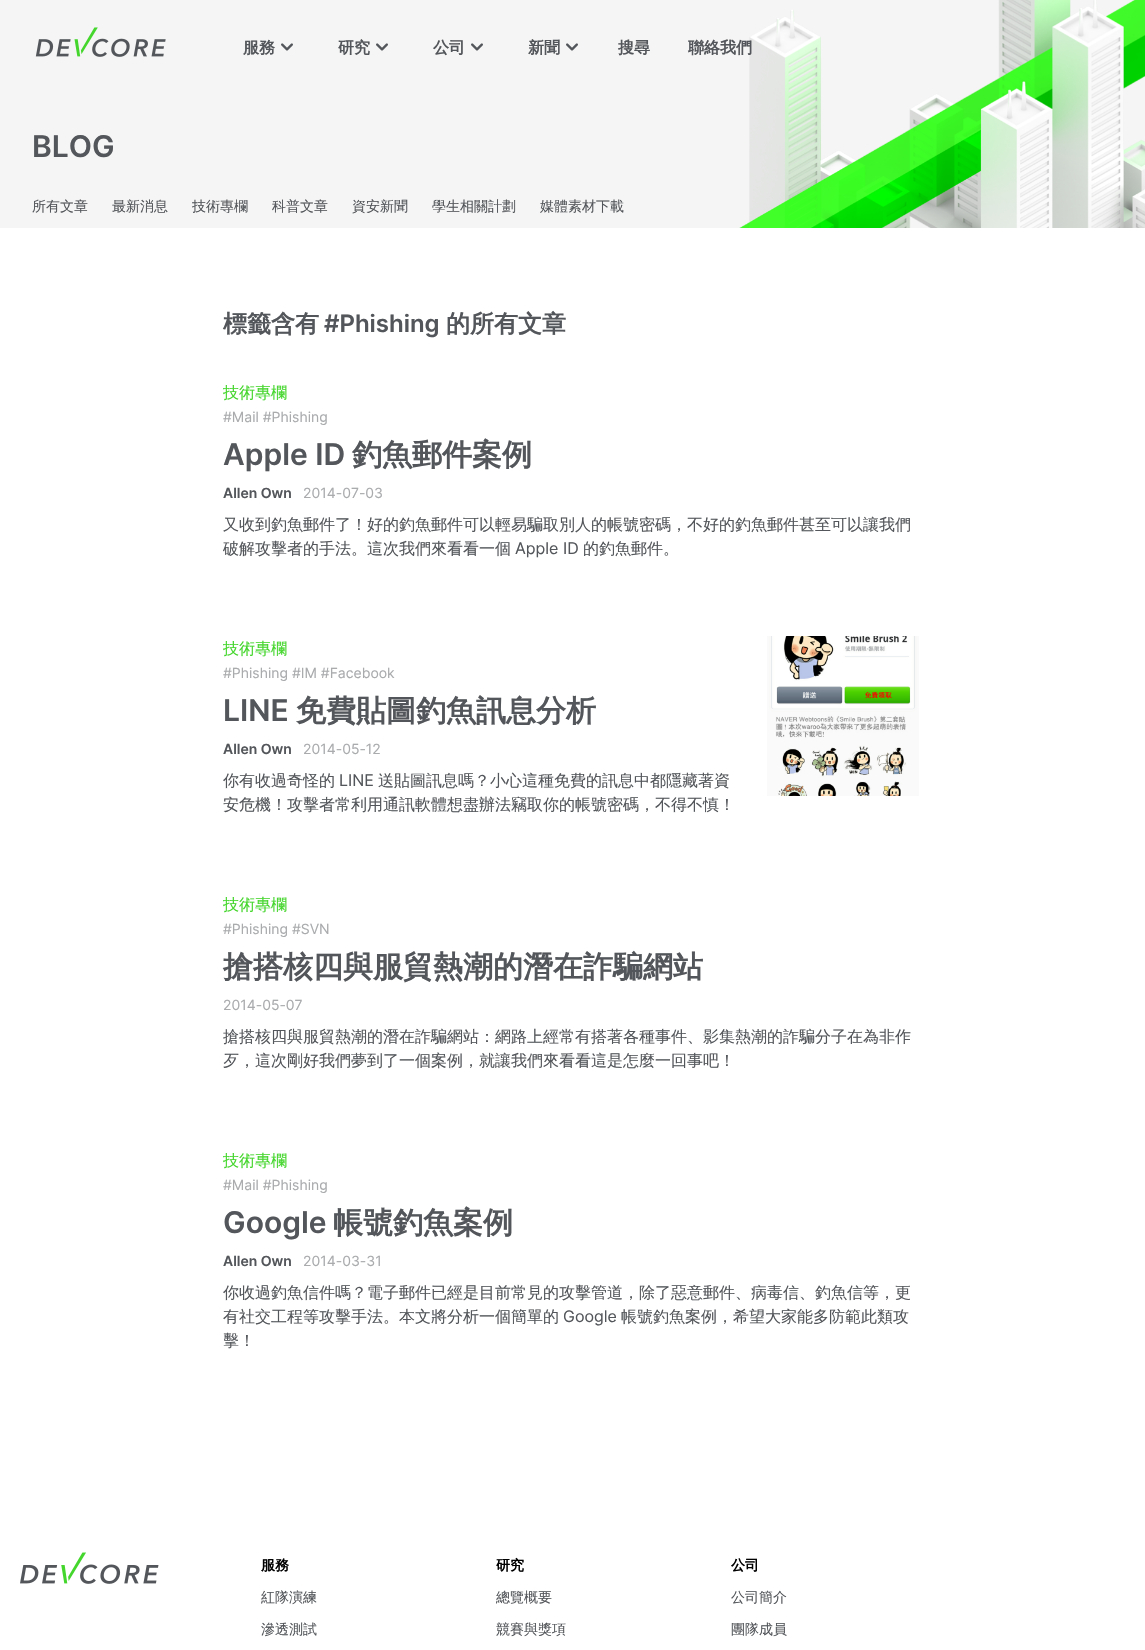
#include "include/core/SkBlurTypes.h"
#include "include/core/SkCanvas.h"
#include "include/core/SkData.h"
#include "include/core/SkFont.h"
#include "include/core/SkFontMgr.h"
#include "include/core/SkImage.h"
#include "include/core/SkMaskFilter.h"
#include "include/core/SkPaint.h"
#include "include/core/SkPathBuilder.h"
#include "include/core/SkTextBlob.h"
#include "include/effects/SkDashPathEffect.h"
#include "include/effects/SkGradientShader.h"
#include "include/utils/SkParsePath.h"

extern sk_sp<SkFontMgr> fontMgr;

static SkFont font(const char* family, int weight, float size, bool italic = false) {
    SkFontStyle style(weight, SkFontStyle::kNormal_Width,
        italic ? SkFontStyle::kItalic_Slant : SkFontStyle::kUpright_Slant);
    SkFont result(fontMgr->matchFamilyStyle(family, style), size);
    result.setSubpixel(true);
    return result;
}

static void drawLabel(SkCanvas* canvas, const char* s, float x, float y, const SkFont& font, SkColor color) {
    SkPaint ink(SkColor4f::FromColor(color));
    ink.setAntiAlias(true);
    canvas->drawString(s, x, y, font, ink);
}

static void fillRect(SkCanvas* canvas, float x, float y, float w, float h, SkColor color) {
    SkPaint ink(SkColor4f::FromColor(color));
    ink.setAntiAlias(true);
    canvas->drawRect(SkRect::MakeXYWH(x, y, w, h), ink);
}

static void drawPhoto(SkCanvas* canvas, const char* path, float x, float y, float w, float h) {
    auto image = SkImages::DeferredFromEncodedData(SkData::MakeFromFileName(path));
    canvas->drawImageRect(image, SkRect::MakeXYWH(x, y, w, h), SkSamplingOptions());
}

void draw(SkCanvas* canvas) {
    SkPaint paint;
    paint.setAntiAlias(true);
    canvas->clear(0xFFFFFFFF);
    fillRect(canvas, 0, 0, 1145, 228, 0xFFF5F5F5);
    drawPhoto(canvas, "assets/img1.png", 35, 27, 131, 30);
    SkFont font1 = font("WenQuanYi Zen Hei", 700, 16);
    drawLabel(canvas, "服務", 243, 53, font1, 0xFF53565A);
    drawPhoto(canvas, "assets/img2.png", 281, 43, 12, 8);
    drawLabel(canvas, "研究", 338, 53, font1, 0xFF53565A);
    drawPhoto(canvas, "assets/img2.png", 376, 43, 12, 8);
    drawLabel(canvas, "公司", 433, 53, font1, 0xFF53565A);
    drawPhoto(canvas, "assets/img2.png", 471, 43, 12, 8);
    drawLabel(canvas, "新聞", 528, 53, font1, 0xFF53565A);
    drawPhoto(canvas, "assets/img2.png", 566, 43, 12, 8);
    drawLabel(canvas, "搜尋", 618, 53, font1, 0xFF53565A);
    drawPhoto(canvas, "assets/img3.png", 739, 0, 406, 228);
    drawLabel(canvas, "聯絡我們", 688, 53, font1, 0xFF53565A);
    SkFont font2 = font("Inter", 600, 30);
    drawLabel(canvas, "BLOG", 32, 157, font2, 0xFF53565A);
    SkFont font3 = font("WenQuanYi Zen Hei", 500, 14);
    drawLabel(canvas, "所有文章", 32, 211, font3, 0xFF53565A);
    drawLabel(canvas, "最新消息", 112, 211, font3, 0xFF53565A);
    drawLabel(canvas, "技術專欄", 192, 211, font3, 0xFF53565A);
    drawLabel(canvas, "科普文章", 272, 211, font3, 0xFF53565A);
    drawLabel(canvas, "資安新聞", 352, 211, font3, 0xFF53565A);
    drawLabel(canvas, "學生相關計劃", 432, 211, font3, 0xFF53565A);
    drawLabel(canvas, "媒體素材下載", 540, 211, font3, 0xFF53565A);
    SkFont font4 = font("WenQuanYi Zen Hei", 700, 24);
    drawLabel(canvas, "標籤含有", 223, 332, font4, 0xFF53565A);
    SkFont font5 = font("Inter", 600, 24);
    drawLabel(canvas, "#Phishing", 324, 332, font5, 0xFF53565A);
    drawLabel(canvas, "的所有文章", 446, 332, font4, 0xFF53565A);
    SkFont font6 = font("WenQuanYi Zen Hei", 500, 16);
    drawLabel(canvas, "技術專欄", 223, 398, font6, 0xFF44D62C);
    SkFont font7 = font("Inter", 400, 14);
    drawLabel(canvas, "#Mail #Phishing", 223, 422, font7, 0xFFA9ABAD);
    drawLabel(canvas, "Apple ID", 223, 465, font2, 0xFF53565A);
    SkFont font8 = font("WenQuanYi Zen Hei", 700, 30);
    drawLabel(canvas, "釣魚郵件案例", 352, 465, font8, 0xFF53565A);
    SkFont font9 = font("Inter", 600, 14);
    drawLabel(canvas, "Allen Own", 223, 498, font9, 0xFF53565A);
    drawLabel(canvas, "2014-07-03", 303, 498, font7, 0xFFA9ABAD);
    drawLabel(canvas, "又收到釣魚郵件了！好的釣魚郵件可以輕易騙取別人的帳號密碼，不好的釣魚郵件甚至可以讓我們", 223, 530, font6, 0xFF53565A);
    drawLabel(canvas, "破解攻擊者的手法。這次我們來看看一個", 223, 554, font6, 0xFF53565A);
    SkFont font10 = font("Inter", 400, 16);
    drawLabel(canvas, "Apple ID", 515, 554, font10, 0xFF53565A);
    drawLabel(canvas, "的釣魚郵件。", 583, 554, font6, 0xFF53565A);
    drawLabel(canvas, "技術專欄", 223, 654, font6, 0xFF44D62C);
    drawLabel(canvas, "#Phishing #IM #Facebook", 223, 678, font7, 0xFFA9ABAD);
    drawLabel(canvas, "LINE", 223, 721, font2, 0xFF53565A);
    drawLabel(canvas, "免費貼圖釣魚訊息分析", 296, 721, font8, 0xFF53565A);
    drawLabel(canvas, "Allen Own", 223, 754, font9, 0xFF53565A);
    drawLabel(canvas, "2014-05-12", 303, 754, font7, 0xFFA9ABAD);
    drawLabel(canvas, "你有收過奇怪的", 223, 786, font6, 0xFF53565A);
    drawLabel(canvas, "LINE", 339, 786, font10, 0xFF53565A);
    drawLabel(canvas, "送貼圖訊息嗎？小心這種免費的訊息中都隱藏著資", 378, 786, font6, 0xFF53565A);
    drawLabel(canvas, "安危機！攻擊者常利用通訊軟體想盡辦法竊取你的帳號密碼，不得不慎！", 223, 810, font6, 0xFF53565A);
    drawPhoto(canvas, "assets/img4.png", 767, 636, 152, 160);
    drawLabel(canvas, "技術專欄", 223, 910, font6, 0xFF44D62C);
    drawLabel(canvas, "#Phishing #SVN", 223, 934, font7, 0xFFA9ABAD);
    drawLabel(canvas, "搶搭核四與服貿熱潮的潛在詐騙網站", 223, 977, font8, 0xFF53565A);
    drawLabel(canvas, "2014-05-07", 223, 1010, font7, 0xFFA9ABAD);
    drawLabel(canvas, "搶搭核四與服貿熱潮的潛在詐騙網站：網路上經常有搭著各種事件、影集熱潮的詐騙分子在為非作", 223, 1042, font6, 0xFF53565A);
    drawLabel(canvas, "歹，這次剛好我們夢到了一個案例，就讓我們來看看這是怎麼一回事吧！", 223, 1066, font6, 0xFF53565A);
    drawLabel(canvas, "技術專欄", 223, 1166, font6, 0xFF44D62C);
    drawLabel(canvas, "#Mail #Phishing", 223, 1190, font7, 0xFFA9ABAD);
    drawLabel(canvas, "Google", 223, 1233, font2, 0xFF53565A);
    drawLabel(canvas, "帳號釣魚案例", 333, 1233, font8, 0xFF53565A);
    drawLabel(canvas, "Allen Own", 223, 1266, font9, 0xFF53565A);
    drawLabel(canvas, "2014-03-31", 303, 1266, font7, 0xFFA9ABAD);
    drawLabel(canvas, "你收過釣魚信件嗎？電子郵件已經是目前常見的攻擊管道，除了惡意郵件、病毒信、釣魚信等，更", 223, 1298, font6, 0xFF53565A);
    drawLabel(canvas, "有社交工程等攻擊手法。本文將分析一個簡單的", 223, 1322, font6, 0xFF53565A);
    drawLabel(canvas, "Google", 563, 1322, font10, 0xFF53565A);
    drawLabel(canvas, "帳號釣魚案例，希望大家能多防範此類攻", 621, 1322, font6, 0xFF53565A);
    drawLabel(canvas, "擊！", 223, 1346, font6, 0xFF53565A);
    drawPhoto(canvas, "assets/img5.png", 20, 1552, 139, 32);
    SkFont font11 = font("WenQuanYi Zen Hei", 700, 14);
    drawLabel(canvas, "服務", 261, 1570, font11, 0xFF000000);
    drawLabel(canvas, "紅隊演練", 261, 1602, font3, 0xFF53565A);
    drawLabel(canvas, "滲透測試", 261, 1634, font3, 0xFF53565A);
    drawLabel(canvas, "研究", 496, 1570, font11, 0xFF000000);
    drawLabel(canvas, "總覽概要", 496, 1602, font3, 0xFF53565A);
    drawLabel(canvas, "競賽與獎項", 496, 1634, font3, 0xFF53565A);
    drawLabel(canvas, "公司", 731, 1570, font11, 0xFF000000);
    drawLabel(canvas, "公司簡介", 731, 1602, font3, 0xFF53565A);
    drawLabel(canvas, "團隊成員", 731, 1634, font3, 0xFF53565A);
}
